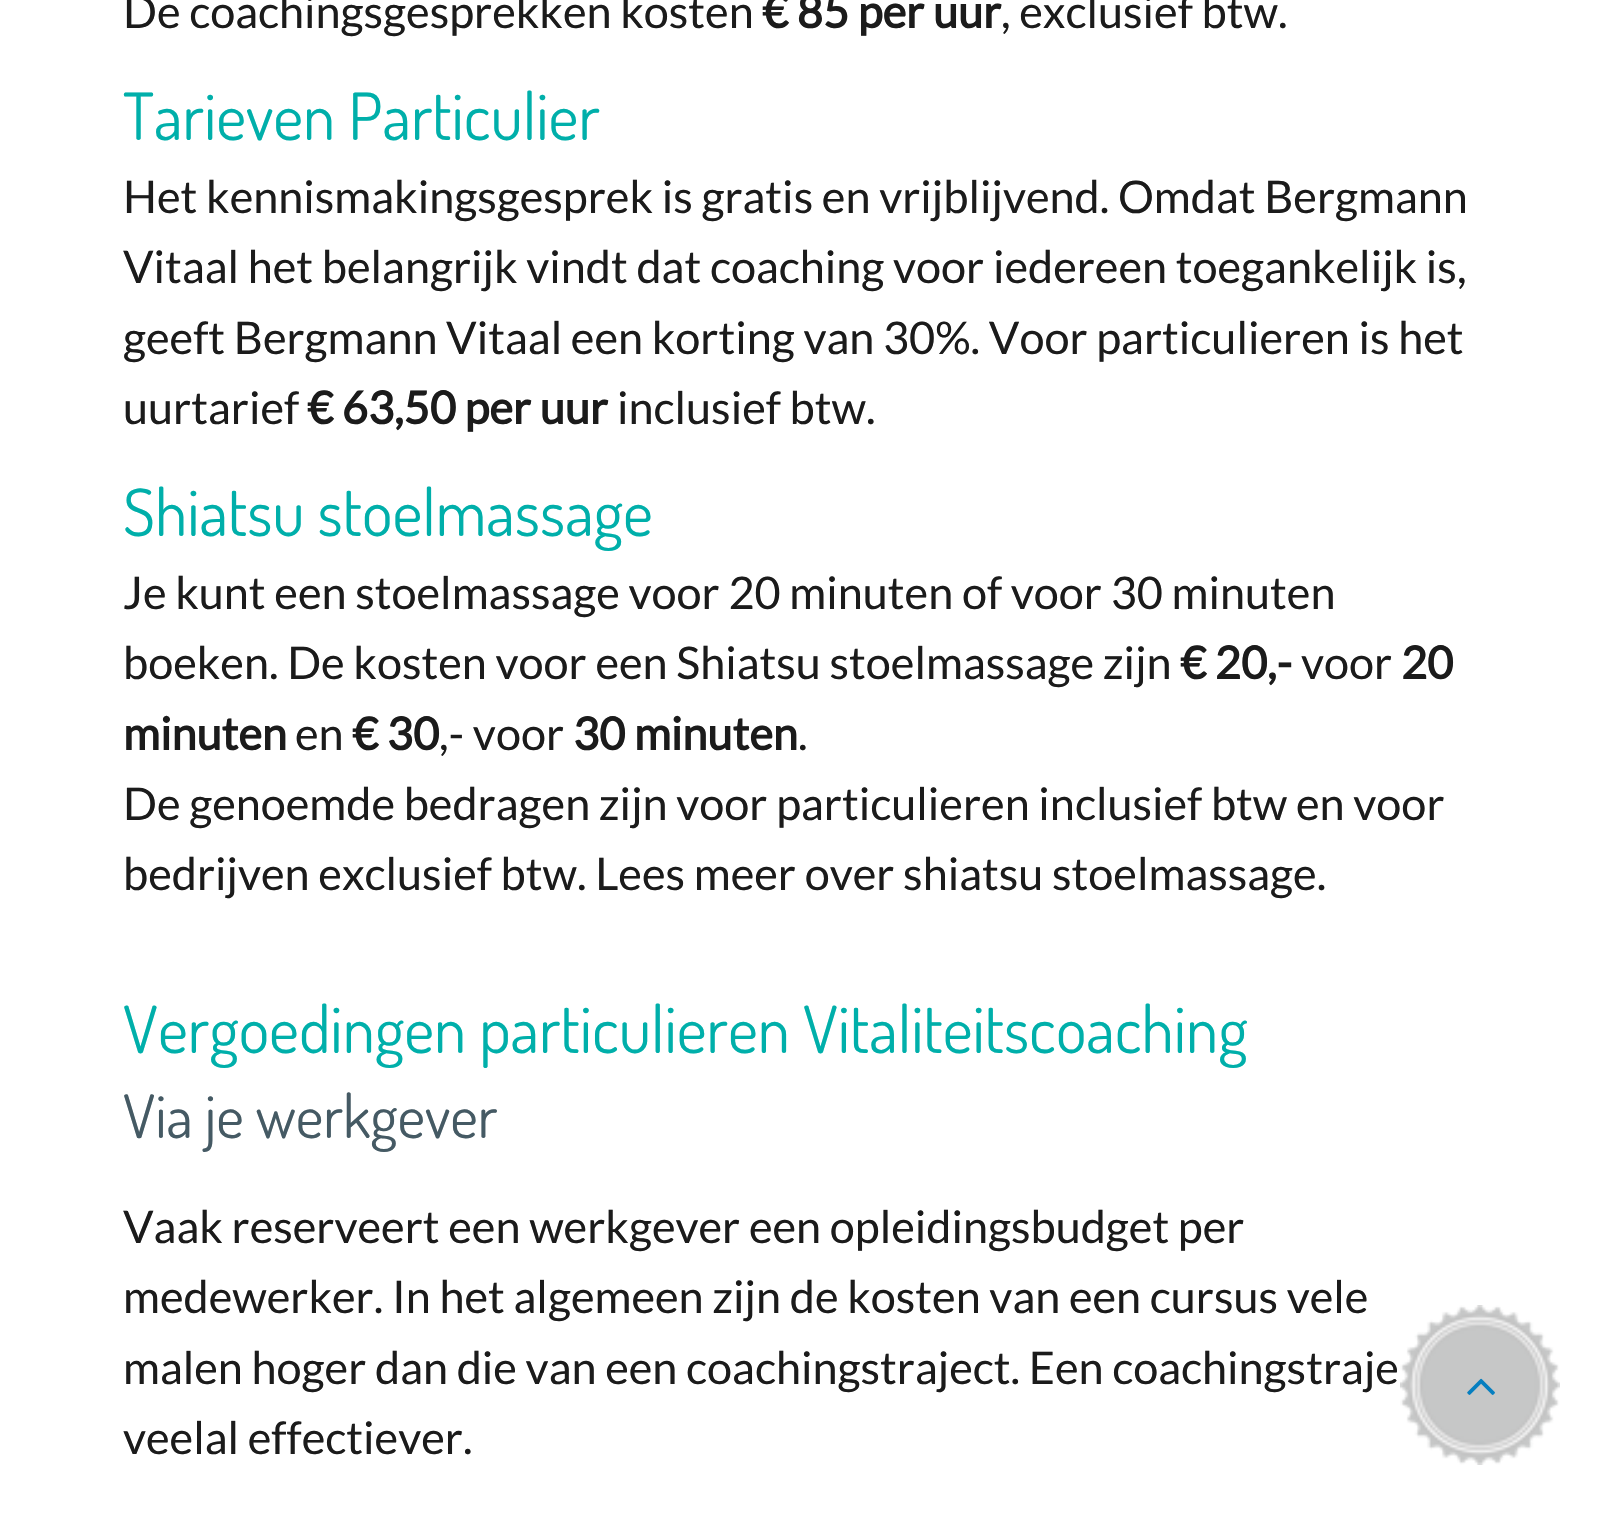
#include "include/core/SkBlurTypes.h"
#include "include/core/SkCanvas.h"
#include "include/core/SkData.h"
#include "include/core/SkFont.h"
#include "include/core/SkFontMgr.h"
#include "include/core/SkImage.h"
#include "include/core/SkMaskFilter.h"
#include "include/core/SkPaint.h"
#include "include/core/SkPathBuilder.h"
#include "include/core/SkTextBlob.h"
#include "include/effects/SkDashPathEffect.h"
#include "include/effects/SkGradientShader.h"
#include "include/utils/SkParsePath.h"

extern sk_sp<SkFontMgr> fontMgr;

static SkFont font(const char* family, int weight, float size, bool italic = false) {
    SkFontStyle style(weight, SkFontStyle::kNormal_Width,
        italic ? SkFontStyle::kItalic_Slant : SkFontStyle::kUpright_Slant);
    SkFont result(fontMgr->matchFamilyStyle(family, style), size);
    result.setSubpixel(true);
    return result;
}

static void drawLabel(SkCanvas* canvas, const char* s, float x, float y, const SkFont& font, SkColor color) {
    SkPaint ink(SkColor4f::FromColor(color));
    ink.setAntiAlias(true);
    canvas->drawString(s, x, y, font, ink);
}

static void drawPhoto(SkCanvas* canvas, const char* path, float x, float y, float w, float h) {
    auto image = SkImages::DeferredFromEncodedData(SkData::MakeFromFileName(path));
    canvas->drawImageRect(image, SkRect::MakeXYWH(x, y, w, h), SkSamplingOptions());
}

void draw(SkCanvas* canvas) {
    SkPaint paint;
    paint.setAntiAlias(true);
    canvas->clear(0xFFFFFFFF);
    SkFont font1 = font("Lato", 400, 45);
    drawLabel(canvas, "De coachingsgesprekken kosten", 123, 28, font1, 0xFF1B1B1B);
    SkFont font2 = font("Lato", 700, 45);
    drawLabel(canvas, "€ 85 per uur", 762, 28, font2, 0xFF1B1B1B);
    drawLabel(canvas, ", exclusief btw.", 1001, 28, font1, 0xFF1B1B1B);
    SkFont font3 = font("Dosis", 400, 65);
    drawLabel(canvas, "Tarieven Particulier", 123, 140, font3, 0xFF00AFAA);
    drawLabel(canvas, "Het kennismakingsgesprek is gratis en vrijblijvend. Omdat Bergmann", 123, 213, font1, 0xFF1B1B1B);
    drawLabel(canvas, "Vitaal het belangrijk vindt dat coaching voor iedereen toegankelijk is,", 123, 283, font1, 0xFF1B1B1B);
    drawLabel(canvas, "geeft Bergmann Vitaal een korting van 30%. Voor particulieren is het", 123, 354, font1, 0xFF1B1B1B);
    drawLabel(canvas, "uurtarief", 123, 424, font1, 0xFF1B1B1B);
    drawLabel(canvas, "€ 63,50 per uur", 307, 424, font2, 0xFF1B1B1B);
    drawLabel(canvas, "inclusief btw.", 617, 424, font1, 0xFF1B1B1B);
    drawLabel(canvas, "Shiatsu stoelmassage", 123, 536, font3, 0xFF00AFAA);
    drawLabel(canvas, "Je kunt een stoelmassage voor 20 minuten of voor 30 minuten", 123, 609, font1, 0xFF1B1B1B);
    drawLabel(canvas, "boeken. De kosten voor een Shiatsu stoelmassage zijn", 123, 679, font1, 0xFF1B1B1B);
    drawLabel(canvas, "€ 20,-", 1180, 679, font2, 0xFF1B1B1B);
    drawLabel(canvas, "voor", 1301, 679, font1, 0xFF1B1B1B);
    drawLabel(canvas, "20", 1401, 679, font2, 0xFF1B1B1B);
    drawLabel(canvas, "minuten", 123, 750, font2, 0xFF1B1B1B);
    drawLabel(canvas, "en", 295, 750, font1, 0xFF1B1B1B);
    drawLabel(canvas, "€ 30", 352, 750, font2, 0xFF1B1B1B);
    drawLabel(canvas, ",- voor", 439, 750, font1, 0xFF1B1B1B);
    drawLabel(canvas, "30 minuten", 573, 750, font2, 0xFF1B1B1B);
    drawLabel(canvas, ".", 798, 750, font1, 0xFF1B1B1B);
    drawLabel(canvas, "De genoemde bedragen zijn voor particulieren inclusief btw en voor", 123, 820, font1, 0xFF1B1B1B);
    drawLabel(canvas, "bedrijven exclusief btw. Lees meer over shiatsu stoelmassage.", 123, 890, font1, 0xFF1B1B1B);
    drawLabel(canvas, "Vergoedingen particulieren Vitaliteitscoaching", 123, 1053, font3, 0xFF00AFAA);
    SkFont font4 = font("Dosis", 400, 60);
    drawLabel(canvas, "Via je werkgever", 123, 1138, font4, 0xFF455A64);
    drawLabel(canvas, "Vaak reserveert een werkgever een opleidingsbudget per", 123, 1243, font1, 0xFF1B1B1B);
    drawLabel(canvas, "medewerker. In het algemeen zijn de kosten van een cursus vele", 123, 1313, font1, 0xFF1B1B1B);
    drawLabel(canvas, "malen hoger dan die van een coachingstraject. Een coachingstraje", 123, 1384, font1, 0xFF1B1B1B);
    drawLabel(canvas, "veelal effectiever.", 123, 1454, font1, 0xFF1B1B1B);
    drawPhoto(canvas, "assets/img1.png", 1400, 1305, 160, 160);
    drawPhoto(canvas, "assets/img2.png", 1467, 1378, 28, 17);
}
